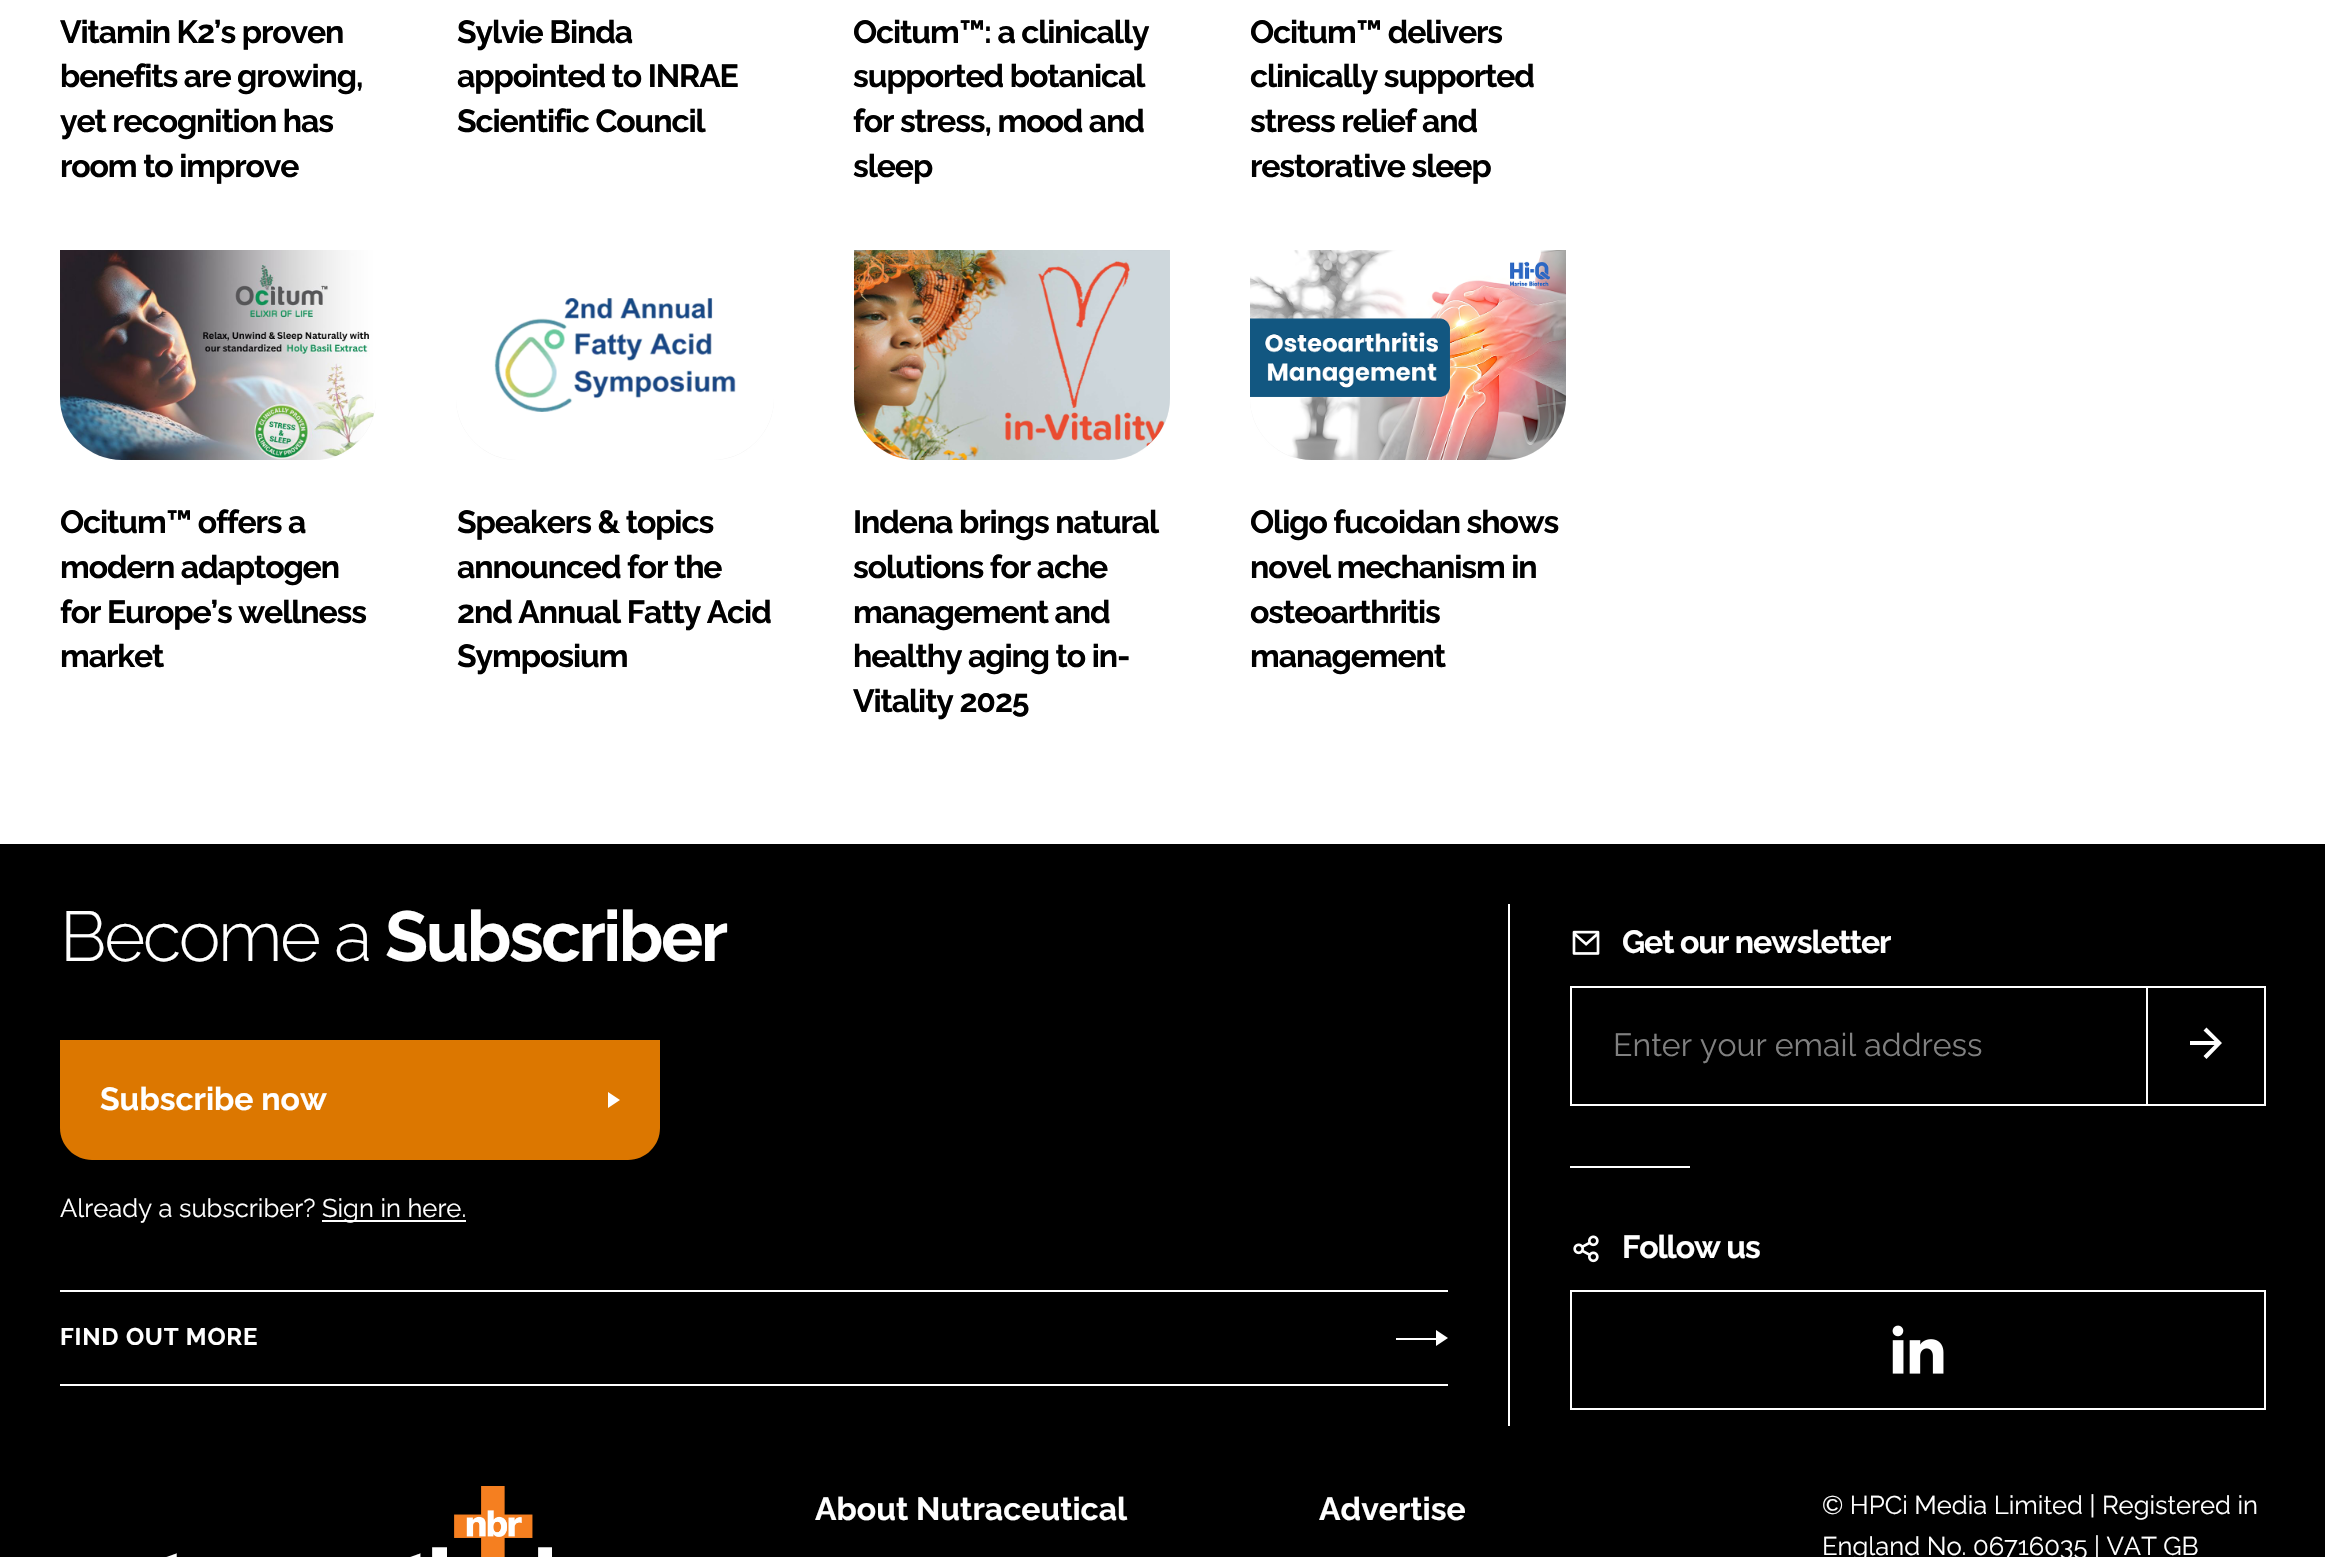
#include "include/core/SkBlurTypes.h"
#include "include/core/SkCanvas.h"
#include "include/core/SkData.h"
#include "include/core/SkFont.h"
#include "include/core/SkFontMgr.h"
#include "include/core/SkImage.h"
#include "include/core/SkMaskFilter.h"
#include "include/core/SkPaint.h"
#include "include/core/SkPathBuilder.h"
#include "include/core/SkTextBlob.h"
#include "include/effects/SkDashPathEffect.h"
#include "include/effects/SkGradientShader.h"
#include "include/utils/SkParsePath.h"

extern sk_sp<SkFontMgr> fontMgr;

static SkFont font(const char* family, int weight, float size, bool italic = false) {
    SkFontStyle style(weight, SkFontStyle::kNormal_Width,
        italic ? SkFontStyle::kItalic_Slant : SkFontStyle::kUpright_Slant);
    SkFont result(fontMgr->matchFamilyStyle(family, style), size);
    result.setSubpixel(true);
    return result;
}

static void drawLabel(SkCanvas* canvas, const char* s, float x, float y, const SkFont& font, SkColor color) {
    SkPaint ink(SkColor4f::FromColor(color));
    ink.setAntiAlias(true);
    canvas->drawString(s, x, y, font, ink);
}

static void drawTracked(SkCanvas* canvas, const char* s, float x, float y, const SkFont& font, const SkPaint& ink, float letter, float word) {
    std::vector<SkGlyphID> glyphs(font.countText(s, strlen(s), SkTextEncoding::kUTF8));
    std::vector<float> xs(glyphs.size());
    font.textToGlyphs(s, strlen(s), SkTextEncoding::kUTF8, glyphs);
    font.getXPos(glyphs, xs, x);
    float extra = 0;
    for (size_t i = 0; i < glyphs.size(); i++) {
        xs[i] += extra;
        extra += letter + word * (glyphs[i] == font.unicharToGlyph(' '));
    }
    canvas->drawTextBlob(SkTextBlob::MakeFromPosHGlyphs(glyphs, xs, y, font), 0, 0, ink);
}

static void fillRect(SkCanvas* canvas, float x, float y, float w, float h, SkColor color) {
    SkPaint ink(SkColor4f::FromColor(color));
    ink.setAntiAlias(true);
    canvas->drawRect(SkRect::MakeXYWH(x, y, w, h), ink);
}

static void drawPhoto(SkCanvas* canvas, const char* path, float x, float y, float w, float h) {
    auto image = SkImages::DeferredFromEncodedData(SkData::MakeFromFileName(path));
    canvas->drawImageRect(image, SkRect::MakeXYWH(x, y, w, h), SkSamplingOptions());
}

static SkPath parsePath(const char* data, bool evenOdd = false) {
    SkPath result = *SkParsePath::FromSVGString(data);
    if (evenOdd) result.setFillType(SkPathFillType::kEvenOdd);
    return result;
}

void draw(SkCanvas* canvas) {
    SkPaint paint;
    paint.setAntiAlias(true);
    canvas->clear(0xFFFFFFFF);
    SkFont font1 = font("Raleway", 700, 32);
    paint.setColor(0xFF000000);
    drawTracked(canvas, "Vitamin K2’s proven", 60, 43, font1, paint, -1.1f, 0);
    drawTracked(canvas, "benefits are growing,", 60, 87, font1, paint, -1.1f, 0);
    drawTracked(canvas, "yet recognition has", 60, 132, font1, paint, -1.1f, 0);
    drawTracked(canvas, "room to improve", 60, 177, font1, paint, -1.1f, 0);
    drawTracked(canvas, "Sylvie Binda", 457, 43, font1, paint, -1.1f, 0);
    drawTracked(canvas, "appointed to INRAE", 457, 87, font1, paint, -1.1f, 0);
    drawTracked(canvas, "Scientific Council", 457, 132, font1, paint, -1.1f, 0);
    drawTracked(canvas, "Ocitum™: a clinically", 853, 43, font1, paint, -1.1f, 0);
    drawTracked(canvas, "supported botanical", 853, 87, font1, paint, -1.1f, 0);
    drawTracked(canvas, "for stress, mood and", 853, 132, font1, paint, -1.1f, 0);
    drawTracked(canvas, "sleep", 853, 177, font1, paint, -1.1f, 0);
    drawTracked(canvas, "Ocitum™ delivers", 1250, 43, font1, paint, -1.1f, 0);
    drawTracked(canvas, "clinically supported", 1250, 87, font1, paint, -1.1f, 0);
    drawTracked(canvas, "stress relief and", 1250, 132, font1, paint, -1.1f, 0);
    drawTracked(canvas, "restorative sleep", 1250, 177, font1, paint, -1.1f, 0);
    paint.setColor(0xFFF2F2F2);
    canvas->drawPath(parsePath("M59 249H377V398C377 433 349 461 314 461H122C87 461 59 433 59 398Z"), paint);
    paint.setStroke(true);
    paint.setStrokeWidth(2);
    paint.setColor(0xFFFFFFFF);
    canvas->drawPath(parsePath("M59 249H377V398C377 433 349 461 314 461H122C87 461 59 433 59 398Z"), paint);
    drawPhoto(canvas, "assets/img1.png", 60, 250, 316, 210);
    paint.setStroke(false);
    paint.setColor(0xFF000000);
    drawTracked(canvas, "Ocitum™ offers a", 60, 533, font1, paint, -1.1f, 0);
    drawTracked(canvas, "modern adaptogen", 60, 578, font1, paint, -1.1f, 0);
    drawTracked(canvas, "for Europe’s wellness", 60, 623, font1, paint, -1.1f, 0);
    drawTracked(canvas, "market", 60, 667, font1, paint, -1.1f, 0);
    paint.setColor(0xFFF2F2F2);
    canvas->drawPath(parsePath("M455 249H775V398C775 433 747 461 712 461H518C483 461 455 433 455 398Z"), paint);
    paint.setStroke(true);
    paint.setColor(0xFFFFFFFF);
    canvas->drawPath(parsePath("M455 249H775V398C775 433 747 461 712 461H518C483 461 455 433 455 398Z"), paint);
    drawPhoto(canvas, "assets/img2.png", 456, 250, 318, 210);
    paint.setStroke(false);
    paint.setColor(0xFF000000);
    drawTracked(canvas, "Speakers & topics", 457, 533, font1, paint, -1.1f, 0);
    drawTracked(canvas, "announced for the", 457, 578, font1, paint, -1.1f, 0);
    drawTracked(canvas, "2nd Annual Fatty Acid", 457, 623, font1, paint, -1.1f, 0);
    drawTracked(canvas, "Symposium", 457, 667, font1, paint, -1.1f, 0);
    paint.setColor(0xFFF2F2F2);
    canvas->drawPath(parsePath("M853 249H1171V398C1171 433 1143 461 1108 461H916C881 461 853 433 853 398Z"), paint);
    paint.setStroke(true);
    paint.setColor(0xFFFFFFFF);
    canvas->drawPath(parsePath("M853 249H1171V398C1171 433 1143 461 1108 461H916C881 461 853 433 853 398Z"), paint);
    drawPhoto(canvas, "assets/img3.png", 854, 250, 316, 210);
    paint.setStroke(false);
    paint.setColor(0xFF000000);
    drawTracked(canvas, "Indena brings natural", 853, 533, font1, paint, -1.1f, 0);
    drawTracked(canvas, "solutions for ache", 853, 578, font1, paint, -1.1f, 0);
    drawTracked(canvas, "management and", 853, 623, font1, paint, -1.1f, 0);
    drawTracked(canvas, "healthy aging to in-", 853, 667, font1, paint, -1.1f, 0);
    drawTracked(canvas, "Vitality 2025", 853, 712, font1, paint, -1.1f, 0);
    paint.setColor(0xFFF2F2F2);
    canvas->drawPath(parsePath("M1249 249H1567V398C1567 433 1539 461 1504 461H1312C1277 461 1249 433 1249 398Z"), paint);
    paint.setStroke(true);
    paint.setColor(0xFFFFFFFF);
    canvas->drawPath(parsePath("M1249 249H1567V398C1567 433 1539 461 1504 461H1312C1277 461 1249 433 1249 398Z"), paint);
    drawPhoto(canvas, "assets/img4.png", 1250, 250, 316, 210);
    paint.setStroke(false);
    paint.setColor(0xFF000000);
    drawTracked(canvas, "Oligo fucoidan shows", 1250, 533, font1, paint, -1.1f, 0);
    drawTracked(canvas, "novel mechanism in", 1250, 578, font1, paint, -1.1f, 0);
    drawTracked(canvas, "osteoarthritis", 1250, 623, font1, paint, -1.1f, 0);
    drawTracked(canvas, "management", 1250, 667, font1, paint, -1.1f, 0);
    fillRect(canvas, 0, 844, 2325, 713, 0xFF000000);
    fillRect(canvas, 1508, 904, 2, 522, 0xFFFFFFFF);
    SkFont font2 = font("Raleway", 300, 70.5f);
    paint.setColor(0xFFFFFFFF);
    drawTracked(canvas, "Become a", 60, 961, font2, paint, -2.5f, 0);
    SkFont font3 = font("Raleway", 700, 70.5f);
    drawTracked(canvas, "Subscriber", 385, 961, font3, paint, -2.5f, 0);
    paint.setColor(0xFFDC7700);
    canvas->drawPath(parsePath("M60 1040H660V1128C660 1145.5 645.5 1160 628 1160H92C74.5 1160 60 1145.5 60 1128Z"), paint);
    drawLabel(canvas, "Subscribe now", 100, 1110, font1, 0xFFFFFFFF);
    paint.setColor(0xFFFFFFFF);
    canvas->drawPath(parsePath("M608 1108V1092L620 1100Z"), paint);
    SkFont font4 = font("Raleway", 400, 25.6f);
    drawLabel(canvas, "Already a subscriber?", 60, 1217, font4, 0xFFFFFFFF);
    fillRect(canvas, 322, 1220, 144, 2, 0xFFFFFFFF);
    drawLabel(canvas, "Sign in here.", 322, 1217, font4, 0xFFFFFFFF);
    fillRect(canvas, 60, 1290, 1388, 2, 0xFFFFFFFF);
    fillRect(canvas, 60, 1384, 1388, 2, 0xFFFFFFFF);
    SkFont font5 = font("Raleway", 700, 24);
    drawTracked(canvas, "FIND OUT MORE", 60, 1345, font5, paint, 0.8f, 0);
    fillRect(canvas, 1396, 1338, 40, 2, 0xFFFFFFFF);
    canvas->drawPath(parsePath("M1436 1346V1330L1448 1338Z"), paint);
    drawPhoto(canvas, "assets/img5.png", 1572, 930, 28, 25);
    drawTracked(canvas, "Get our newsletter", 1622, 953, font1, paint, -1.1f, 0);
    fillRect(canvas, 1570, 986, 576, 2, 0xFFFFFFFF);
    fillRect(canvas, 1570, 1104, 576, 2, 0xFFFFFFFF);
    fillRect(canvas, 1570, 986, 2, 120, 0xFFFFFFFF);
    SkFont font6 = font("Raleway", 400, 32);
    drawLabel(canvas, "Enter your email address", 1613, 1056, font6, 0xFF808080);
    paint.setStroke(true);
    canvas->drawRect(SkRect::MakeXYWH(2147, 987, 118, 118), paint);
    paint.setStroke(false);
    canvas->drawPath(parsePath("M2214.5 1041L2203.5 1030.5L2206.5 1027.5L2222 1043L2206.5 1059L2203.5 1056L2214.5 1045H2190V1041Z"), paint);
    fillRect(canvas, 1570, 1166, 120, 2, 0xFFFFFFFF);
    drawPhoto(canvas, "assets/img6.png", 1573, 1235, 26, 28);
    drawTracked(canvas, "Follow us", 1622, 1258, font1, paint, -1.1f, 0);
    paint.setStroke(true);
    canvas->drawRect(SkRect::MakeXYWH(1571, 1291, 694, 118), paint);
    drawPhoto(canvas, "assets/img7.png", 1892, 1325, 52, 49);
    drawPhoto(canvas, "assets/img8.png", 166, 1486, 386, 71);
    drawLabel(canvas, "About Nutraceutical", 815, 1520, font1, 0xFFFFFFFF);
    drawLabel(canvas, "Advertise", 1319, 1520, font1, 0xFFFFFFFF);
    drawLabel(canvas, "© HPCi Media Limited | Registered in", 1822, 1514, font4, 0xFFFFFFFF);
    drawLabel(canvas, "England No. 06716035 | VAT GB", 1822, 1555, font4, 0xFFFFFFFF);
}
